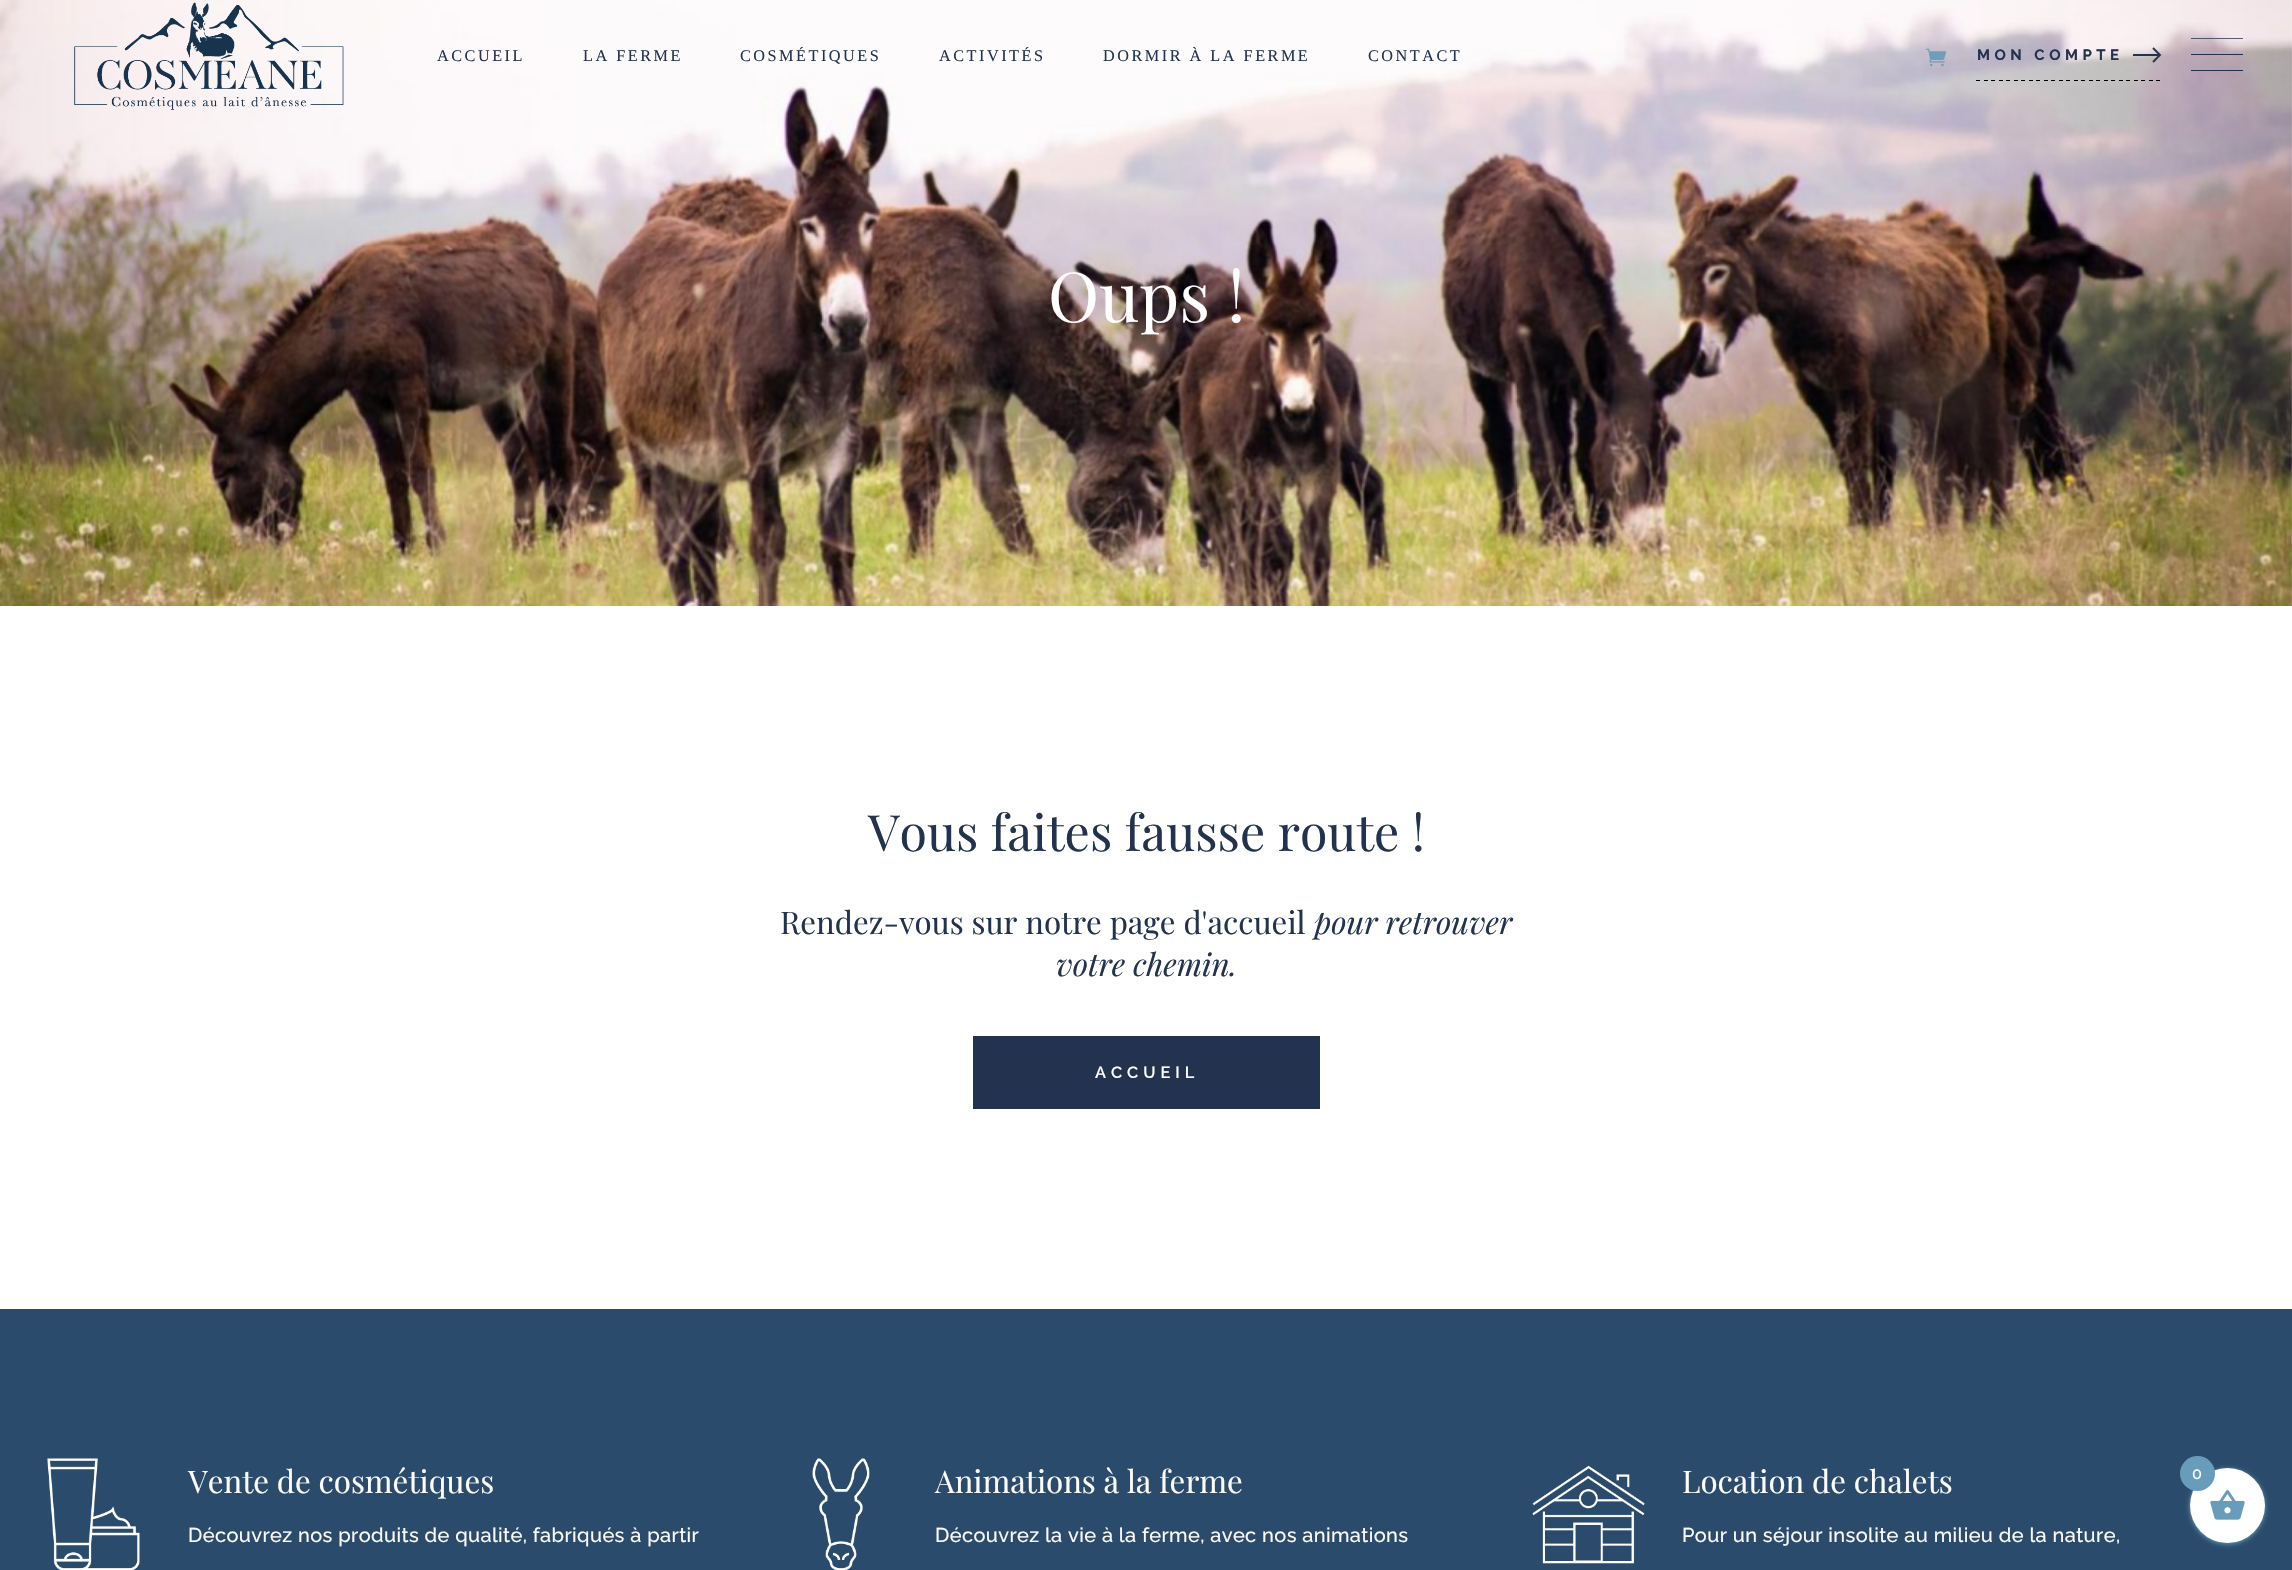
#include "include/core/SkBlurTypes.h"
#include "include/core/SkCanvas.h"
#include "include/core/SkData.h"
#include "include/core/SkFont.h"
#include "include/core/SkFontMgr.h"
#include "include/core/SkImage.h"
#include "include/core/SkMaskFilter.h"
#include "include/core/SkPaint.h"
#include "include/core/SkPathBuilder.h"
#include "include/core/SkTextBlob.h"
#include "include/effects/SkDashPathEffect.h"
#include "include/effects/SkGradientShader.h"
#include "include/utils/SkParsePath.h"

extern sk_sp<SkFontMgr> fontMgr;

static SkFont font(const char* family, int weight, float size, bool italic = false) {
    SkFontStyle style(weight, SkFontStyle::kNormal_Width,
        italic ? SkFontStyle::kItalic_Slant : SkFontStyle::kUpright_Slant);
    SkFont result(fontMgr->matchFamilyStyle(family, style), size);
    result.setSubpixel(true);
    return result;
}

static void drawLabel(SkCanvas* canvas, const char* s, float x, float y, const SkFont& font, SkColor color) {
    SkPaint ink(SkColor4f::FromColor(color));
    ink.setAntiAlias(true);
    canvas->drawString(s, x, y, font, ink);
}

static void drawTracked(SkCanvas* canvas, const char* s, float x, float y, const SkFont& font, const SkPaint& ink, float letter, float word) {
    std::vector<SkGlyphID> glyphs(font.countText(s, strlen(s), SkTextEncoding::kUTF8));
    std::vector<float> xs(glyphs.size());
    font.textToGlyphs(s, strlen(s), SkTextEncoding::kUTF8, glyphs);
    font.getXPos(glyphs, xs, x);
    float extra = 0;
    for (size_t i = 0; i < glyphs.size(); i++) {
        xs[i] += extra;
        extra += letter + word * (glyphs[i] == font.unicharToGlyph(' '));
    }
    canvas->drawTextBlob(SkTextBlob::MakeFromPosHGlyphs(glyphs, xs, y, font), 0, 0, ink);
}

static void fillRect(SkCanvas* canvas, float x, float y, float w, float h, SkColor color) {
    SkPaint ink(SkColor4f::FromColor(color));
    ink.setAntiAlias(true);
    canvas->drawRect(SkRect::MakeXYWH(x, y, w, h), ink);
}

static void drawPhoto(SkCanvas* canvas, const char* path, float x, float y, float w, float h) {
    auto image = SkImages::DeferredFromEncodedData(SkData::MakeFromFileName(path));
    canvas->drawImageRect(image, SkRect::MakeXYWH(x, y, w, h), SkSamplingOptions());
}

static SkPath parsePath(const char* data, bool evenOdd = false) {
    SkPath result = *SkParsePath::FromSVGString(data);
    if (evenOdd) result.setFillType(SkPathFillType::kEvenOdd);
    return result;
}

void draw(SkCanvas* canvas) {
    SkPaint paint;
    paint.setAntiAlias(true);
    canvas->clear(0xFFFFFFFF);
    drawPhoto(canvas, "assets/img4.png", 0, 0, 2292, 606);
    drawPhoto(canvas, "assets/img1.png", 74, 2, 270, 108);
    SkFont font1 = font("Liberation Serif", 400, 16.25f);
    paint.setColor(0xFF23324E);
    drawTracked(canvas, "ACCUEIL", 437, 61, font1, paint, 2.5f, 0);
    drawTracked(canvas, "LA FERME", 583, 61, font1, paint, 2.5f, 0);
    drawTracked(canvas, "COSMÉTIQUES", 740, 61, font1, paint, 2.5f, 0);
    drawTracked(canvas, "ACTIVITÉS", 939, 61, font1, paint, 2.5f, 0);
    drawTracked(canvas, "DORMIR À LA FERME", 1103, 61, font1, paint, 2.5f, 0);
    drawTracked(canvas, "CONTACT", 1368, 61, font1, paint, 2.5f, 0);
    drawPhoto(canvas, "assets/img2.png", 1926, 48, 21, 19);
    SkFont font2 = font("Raleway", 700, 15);
    drawTracked(canvas, "MON COMPTE", 1977, 60, font2, paint, 4.5f, 0);
    paint.setStroke(true);
    paint.setStrokeWidth(1.9f);
    canvas->drawPath(parsePath("M2153 48L2160 55L2153 62"), paint);
    fillRect(canvas, 2133, 54, 27, 2, 0xF223324E);
    fillRect(canvas, 2133, 54, 27, 2, 0xF223324E);
    drawPhoto(canvas, "assets/img3.png", 1976, 80, 184, 1);
    canvas->save();
    canvas->clipRect(SkRect::MakeXYWH(2191, 38, 52, 33));
    paint.setStrokeWidth(1.2f);
    canvas->drawPath(parsePath("M2191 38H2243"), paint);
    canvas->drawPath(parsePath("M2191 38H2243"), paint);
    canvas->restore();
    fillRect(canvas, 2191, 54, 52, 1, 0xFF23324E);
    fillRect(canvas, 2191, 70, 52, 1, 0xFF23324E);
    SkFont font3 = font("Playfair Display", 400, 69);
    drawLabel(canvas, "Oups !", 1048, 322, font3, 0xFFFFFFFF);
    SkFont font4 = font("Playfair Display", 400, 50);
    drawLabel(canvas, "Vous faites fausse route !", 868, 851, font4, 0xFF23324E);
    SkFont font5 = font("Playfair Display", 400, 31.25f);
    drawLabel(canvas, "Rendez-vous sur notre page d'accueil", 780, 934, font5, 0xFF23324E);
    SkFont font6 = font("Playfair Display", 400, 31.25f, true);
    drawLabel(canvas, "pour retrouver", 1314, 934, font6, 0xFF23324E);
    drawLabel(canvas, "votre chemin.", 1056, 976, font6, 0xFF23324E);
    fillRect(canvas, 973, 1036, 347, 73, 0xFF23324E);
    SkFont font7 = font("Raleway", 600, 16.25f);
    paint.setStroke(false);
    paint.setColor(0xFFFFFFFF);
    drawTracked(canvas, "ACCUEIL", 1095, 1078, font7, paint, 5, 0);
    fillRect(canvas, 0, 1309, 2292, 261, 0xFF2A4B6B);
    drawPhoto(canvas, "assets/img5.png", 47, 1458, 93, 112);
    drawLabel(canvas, "Vente de cosmétiques", 188, 1493, font5, 0xFFFCFBF8);
    SkFont font8 = font("Raleway", 500, 20);
    paint.setColor(0xFFFCFBF8);
    drawTracked(canvas, "Découvrez nos produits de qualité, fabriqués à partir", 188, 1542, font8, paint, 0.4f, 0);
    drawPhoto(canvas, "assets/img6.png", 812, 1458, 58, 112);
    drawLabel(canvas, "Animations à la ferme", 935, 1493, font5, 0xFFFCFBF8);
    drawTracked(canvas, "Découvrez la vie à la ferme, avec nos animations", 935, 1542, font8, paint, 0.4f, 0);
    drawPhoto(canvas, "assets/img7.png", 1532, 1465, 113, 99);
    drawLabel(canvas, "Location de chalets", 1682, 1493, font5, 0xFFFCFBF8);
    drawTracked(canvas, "Pour un séjour insolite au milieu de la nature,", 1682, 1542, font8, paint, 0.4f, 0);
    paint.setColor(0xFF679DBA);
    paint.setMaskFilter(SkMaskFilter::MakeBlur(kNormal_SkBlurStyle, 2.5f));
    canvas->drawRoundRect(SkRect::MakeXYWH(2190, 1469, 75, 75), 37.5f, 37.5f, paint);
    paint.setMaskFilter(nullptr);
    paint.setColor(0xFFFFFFFF);
    canvas->drawCircle(2227.5f, 1505.5f, 37.5f, paint);
    drawPhoto(canvas, "assets/img8.png", 2210, 1490, 35, 30);
    paint.setColor(0xFF679DBA);
    canvas->drawCircle(2197.5f, 1473.5f, 17.5f, paint);
    SkFont font9 = font("Raleway", 500, 16.25f);
    paint.setColor(0xFFFFFFFF);
    drawTracked(canvas, "0", 2192, 1479, font9, paint, 0.4f, 0);
}
